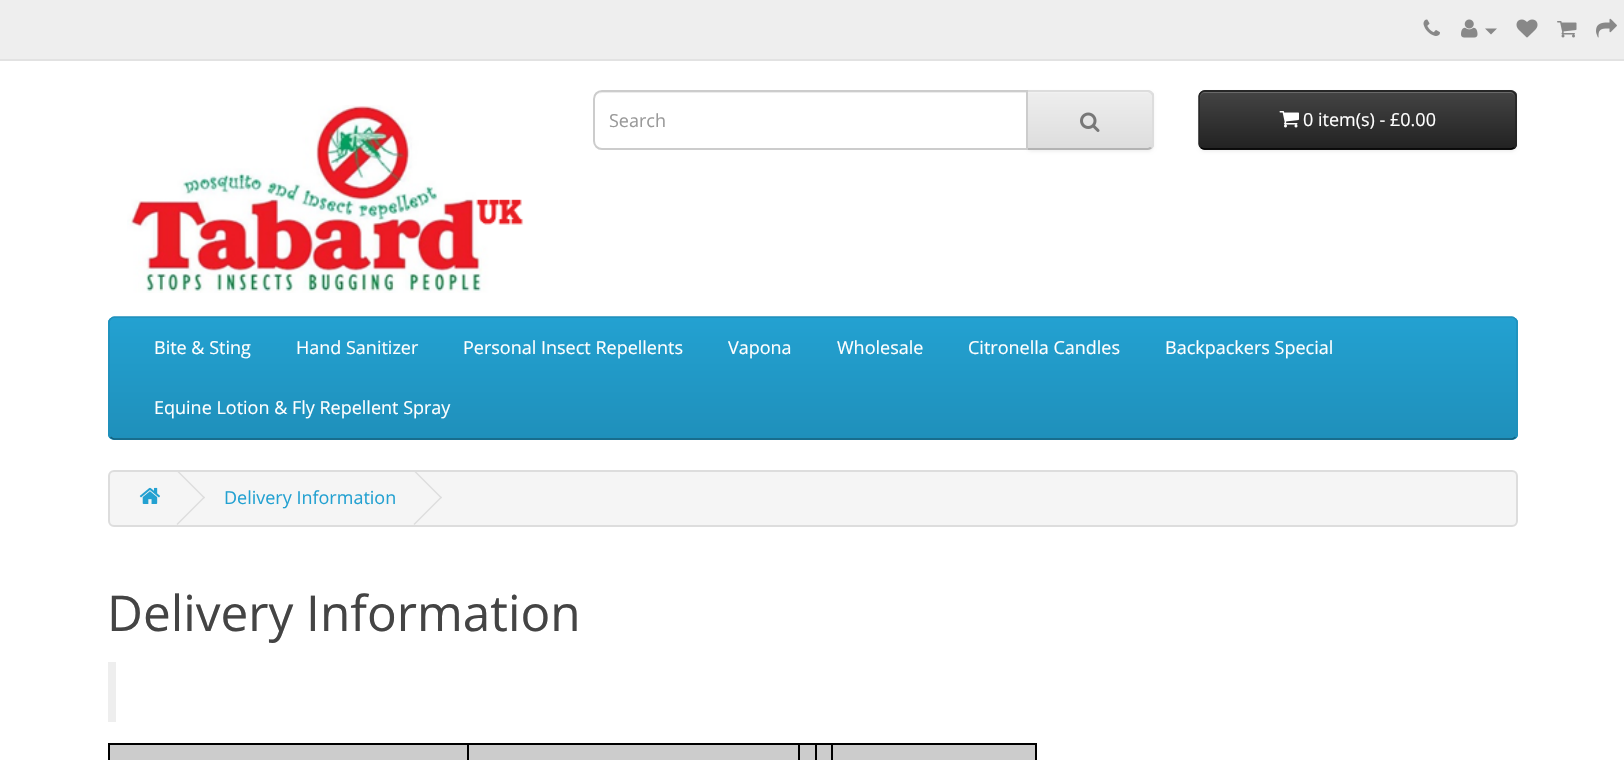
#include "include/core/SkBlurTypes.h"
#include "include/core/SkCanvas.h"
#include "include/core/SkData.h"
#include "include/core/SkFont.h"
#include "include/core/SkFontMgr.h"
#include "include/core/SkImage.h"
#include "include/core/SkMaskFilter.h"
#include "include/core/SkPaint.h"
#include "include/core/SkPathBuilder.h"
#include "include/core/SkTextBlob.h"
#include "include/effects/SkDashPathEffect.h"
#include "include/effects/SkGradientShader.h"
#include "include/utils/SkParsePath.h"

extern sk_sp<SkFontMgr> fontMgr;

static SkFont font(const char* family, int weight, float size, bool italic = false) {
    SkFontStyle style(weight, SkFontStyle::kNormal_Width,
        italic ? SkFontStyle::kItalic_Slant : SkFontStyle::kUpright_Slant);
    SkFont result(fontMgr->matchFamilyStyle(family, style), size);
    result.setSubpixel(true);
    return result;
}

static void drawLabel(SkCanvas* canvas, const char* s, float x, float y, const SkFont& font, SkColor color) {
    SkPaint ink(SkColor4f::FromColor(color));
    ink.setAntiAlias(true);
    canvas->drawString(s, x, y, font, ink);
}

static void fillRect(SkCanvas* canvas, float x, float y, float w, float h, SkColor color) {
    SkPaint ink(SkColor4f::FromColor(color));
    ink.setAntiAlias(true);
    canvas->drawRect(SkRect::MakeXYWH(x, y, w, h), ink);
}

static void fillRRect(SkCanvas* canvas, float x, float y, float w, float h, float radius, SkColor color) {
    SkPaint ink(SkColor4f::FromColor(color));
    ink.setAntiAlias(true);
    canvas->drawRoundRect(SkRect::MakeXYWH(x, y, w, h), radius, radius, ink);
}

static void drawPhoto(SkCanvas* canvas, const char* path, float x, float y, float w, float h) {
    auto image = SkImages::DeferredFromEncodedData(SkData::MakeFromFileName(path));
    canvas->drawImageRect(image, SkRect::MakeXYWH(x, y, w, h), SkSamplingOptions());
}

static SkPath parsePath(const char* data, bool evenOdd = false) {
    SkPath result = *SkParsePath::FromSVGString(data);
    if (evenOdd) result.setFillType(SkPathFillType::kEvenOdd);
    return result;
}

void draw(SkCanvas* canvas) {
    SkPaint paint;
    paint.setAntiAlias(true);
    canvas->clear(0xFFFFFFFF);
    fillRect(canvas, 0, 0, 1624, 59, 0xFFEEEEEE);
    fillRect(canvas, 0, 59, 1624, 2, 0xFFE2E2E2);
    drawPhoto(canvas, "assets/img1.png", 1423, 19, 17, 17);
    drawPhoto(canvas, "assets/img2.png", 1461, 19, 17, 19);
    paint.setColor(0xFF888888);
    canvas->drawPath(parsePath("M1485 28.5H1497L1491 34.5Z"), paint);
    drawPhoto(canvas, "assets/img3.png", 1516, 19, 22, 19);
    drawPhoto(canvas, "assets/img4.png", 1557, 21, 20, 17);
    drawPhoto(canvas, "assets/img5.png", 1596, 18, 21, 20);
    drawPhoto(canvas, "assets/img6.png", 127, 105, 397, 188);
    paint.setColor(0x0D000000);
    paint.setMaskFilter(SkMaskFilter::MakeBlur(kNormal_SkBlurStyle, 1.5f));
    canvas->drawRoundRect(SkRect::MakeXYWH(1026, 92, 128, 60), 6, 6, paint);
    paint.setMaskFilter(nullptr);
    paint.setColor(0xFFE7E7E7);
    canvas->drawPath(parsePath("M1026 90H1148C1151.5 90 1154 92.5 1154 96V144C1154 147.5 1151.5 150 1148 150H1026Z"), paint);
    canvas->save();
    canvas->clipPath(parsePath("M1026 90H1148C1151.5 90 1154 92.5 1154 96V144C1154 147.5 1151.5 150 1148 150H1026Z"), true);
    {
        const SkColor colors[] = {0xFFEEEEEE, 0xFFDDDDDD};
        const float stops[] = {0, 1};
        const SkPoint ends[] = {{1090, 92}, {1090, 149}};
        paint.setShader(SkGradientShader::MakeLinear(ends, colors, stops, 2, SkTileMode::kClamp));
        paint.setAlpha(255);
    }
    canvas->drawRect(SkRect::MakeXYWH(1028, 92, 126, 57), paint);
    canvas->restore();
    paint.setShader(nullptr);
    paint.setColor(0xFFF1F1F1);
    canvas->drawPath(parsePath("M1028 93H1148C1150 93 1152 95 1152 98V97C1152 94 1150 92 1147 92H1028Z"), paint);
    paint.setColor(0xFFDDDDDD);
    canvas->drawPath(parsePath("M1026 90L1028 92H1148L1150 93L1152 92C1151 91 1149 90 1148 90Z"), paint);
    canvas->drawPath(parsePath("M1154 146L1152 148L1150 147C1151 146 1152 145 1152 144V96C1152 95 1151 94 1150 93L1152 92L1154 94Z"), paint);
    paint.setColor(0xFFB3B3B3);
    canvas->drawPath(parsePath("M1148 150C1149 150 1151 149 1152 148L1150 147L1148 148H1028L1026 150Z"), paint);
    paint.setColor(0xFFFFFFFF);
    canvas->drawPath(parsePath("M602 90H1028V150H602C597 150 593 146 593 141V99C593 94 597 90 602 90Z"), paint);
    paint.setColor(0xFFECECEC);
    canvas->drawPath(parsePath("M602 93H1026V92H602C598 92 594 96 594 100C594 96 597 93 602 93Z"), paint);
    paint.setStroke(true);
    paint.setStrokeWidth(2);
    paint.setColor(0xFFCCCCCC);
    canvas->drawPath(parsePath("M602 91H1027V149H602C597.5 149 594 145.5 594 141V99C594 94.5 597.5 91 602 91Z"), paint);
    SkFont font1 = font("Open Sans", 400, 18);
    drawLabel(canvas, "Search", 609, 127, font1, 0xFF999999);
    drawPhoto(canvas, "assets/img7.png", 1080, 112, 20, 20);
    paint.setStroke(false);
    paint.setColor(0x0D000000);
    paint.setMaskFilter(SkMaskFilter::MakeBlur(kNormal_SkBlurStyle, 1.5f));
    canvas->drawRoundRect(SkRect::MakeXYWH(1199, 92, 318, 60), 6, 6, paint);
    paint.setMaskFilter(nullptr);
    fillRRect(canvas, 1199, 90, 318, 60, 6, 0xFF363636);
    canvas->save();
    canvas->clipPath(parsePath("M1205 90H1511C1514.5 90 1517 92.5 1517 96V144C1517 147.5 1514.5 150 1511 150H1205C1201.5 150 1199 147.5 1199 144V96C1199 92.5 1201.5 90 1205 90Z"), true);
    {
        const SkColor colors[] = {0xFF444444, 0xFF222222};
        const float stops[] = {0, 1};
        const SkPoint ends[] = {{1358, 91}, {1358, 149}};
        paint.setShader(SkGradientShader::MakeLinear(ends, colors, stops, 2, SkTileMode::kClamp));
        paint.setAlpha(255);
    }
    canvas->drawRect(SkRect::MakeXYWH(1199, 92, 318, 57), paint);
    canvas->restore();
    paint.setShader(nullptr);
    paint.setColor(0xFF696969);
    canvas->drawPath(parsePath("M1204 93H1510C1513 93 1515 95 1515 98C1515 95 1513 92 1510 92H1205C1202 92 1200 95 1200 98C1200 95 1202 93 1204 93Z"), paint);
    paint.setStroke(true);
    paint.setStrokeWidth(1.5f);
    paint.setColor(0xFF000000);
    canvas->drawPath(parsePath("M1514 147.5C1513 148.5 1512 149 1510.5 149H1204.5C1203 149 1202 148.5 1201 147.5"), paint);
    paint.setColor(0xFF222222);
    canvas->drawPath(parsePath("M1201 147.5C1200 146.5 1199 145.5 1199 144V96C1199 94.5 1200 93.5 1201 92.5C1202 91.5 1203 91 1204.5 91H1510.5C1512 91 1513 91.5 1514 92.5C1515 93.5 1516 94.5 1516 96V144C1516 145.5 1515 146.5 1514 147.5"), paint);
    drawPhoto(canvas, "assets/img8.png", 1279, 111, 20, 17);
    drawLabel(canvas, "0 item(s) - £0.00", 1303, 126, font1, 0xFFFFFFFF);
    fillRRect(canvas, 108, 317, 1410, 123, 6, 0xFF229AC8);
    canvas->save();
    canvas->clipPath(parsePath("M114 317H1512C1515.5 317 1518 319.5 1518 323V434C1518 437.5 1515.5 440 1512 440H114C110.5 440 108 437.5 108 434V323C108 319.5 110.5 317 114 317Z"), true);
    paint.setStroke(false);
    {
        const SkColor colors[] = {0xFF23A1D1, 0xFF1F90BB};
        const float stops[] = {0, 1};
        const SkPoint ends[] = {{813, 318}, {813, 438}};
        paint.setShader(SkGradientShader::MakeLinear(ends, colors, stops, 2, SkTileMode::kClamp));
        paint.setAlpha(255);
    }
    canvas->drawRect(SkRect::MakeXYWH(108, 318, 1410, 120), paint);
    canvas->restore();
    paint.setStroke(true);
    paint.setShader(nullptr);
    paint.setColor(0xFF145E7A);
    canvas->drawPath(parsePath("M1515.5 437C1514.5 438 1513.5 439 1512 439H114C112.5 439 111.5 438 110.5 437"), paint);
    paint.setColor(0xFF1F90BB);
    canvas->drawPath(parsePath("M110.5 437C109.5 436 109 435 109 433.5V322.5C109 321 109.5 320 110.5 319C111.5 318 112.5 317 114 317H1512C1513.5 317 1514.5 318 1515.5 319C1516.5 320 1517 321 1517 322.5V433.5C1517 435 1516.5 436 1515.5 437"), paint);
    drawLabel(canvas, "Bite & Sting", 154, 354, font1, 0xFFFFFFFF);
    drawLabel(canvas, "Hand Sanitizer", 296, 354, font1, 0xFFFFFFFF);
    drawLabel(canvas, "Personal Insect Repellents", 463, 354, font1, 0xFFFFFFFF);
    drawLabel(canvas, "Vapona", 728, 354, font1, 0xFFFFFFFF);
    drawLabel(canvas, "Wholesale", 837, 354, font1, 0xFFFFFFFF);
    drawLabel(canvas, "Citronella Candles", 968, 354, font1, 0xFFFFFFFF);
    drawLabel(canvas, "Backpackers Special", 1165, 354, font1, 0xFFFFFFFF);
    drawLabel(canvas, "Equine Lotion & Fly Repellent Spray", 154, 414, font1, 0xFFFFFFFF);
    paint.setStroke(false);
    paint.setColor(0xFFF5F5F5);
    canvas->drawRoundRect(SkRect::MakeXYWH(109, 471, 1408, 55), 5, 5, paint);
    paint.setStroke(true);
    paint.setStrokeWidth(2);
    paint.setColor(0xFFDDDDDD);
    canvas->drawRoundRect(SkRect::MakeXYWH(109, 471, 1408, 55), 5, 5, paint);
    drawPhoto(canvas, "assets/img9.png", 139, 487, 21, 17);
    paint.setStroke(false);
    canvas->drawPath(parsePath("M176.5 471L177.5 470L205 497.5L204 498.5Z"), paint);
    canvas->drawPath(parsePath("M176.5 524L204 496.5L205 497.5L177.5 525Z"), paint);
    drawLabel(canvas, "Delivery Information", 224, 504, font1, 0xFF23A1D1);
    canvas->drawPath(parsePath("M413.5 471L414.5 470L442 497.5L441 498.5Z"), paint);
    canvas->drawPath(parsePath("M413.5 524L441 496.5L442 497.5L414.5 525Z"), paint);
    SkFont font2 = font("Open Sans", 400, 49.5f);
    drawLabel(canvas, "Delivery Information", 107, 631, font2, 0xFF444444);
    fillRect(canvas, 108, 662, 8, 60, 0xFFEEEEEE);
    fillRect(canvas, 108, 743, 929, 2, 0xFF000000);
    fillRect(canvas, 1035, 743, 2, 17, 0xFF000000);
    fillRect(canvas, 108, 743, 2, 17, 0xFF000000);
    fillRect(canvas, 110, 745, 357, 15, 0xFFCCCCCC);
    fillRect(canvas, 469, 745, 329, 15, 0xFFCCCCCC);
    fillRect(canvas, 467, 743, 2, 17, 0xFF000000);
    fillRect(canvas, 800, 745, 15, 15, 0xFFCCCCCC);
    fillRect(canvas, 798, 743, 2, 17, 0xFF000000);
    fillRect(canvas, 817, 745, 14, 15, 0xFFCCCCCC);
    fillRect(canvas, 815, 743, 2, 17, 0xFF000000);
    fillRect(canvas, 833, 745, 202, 15, 0xFFCCCCCC);
    fillRect(canvas, 831, 743, 2, 17, 0xFF000000);
}
